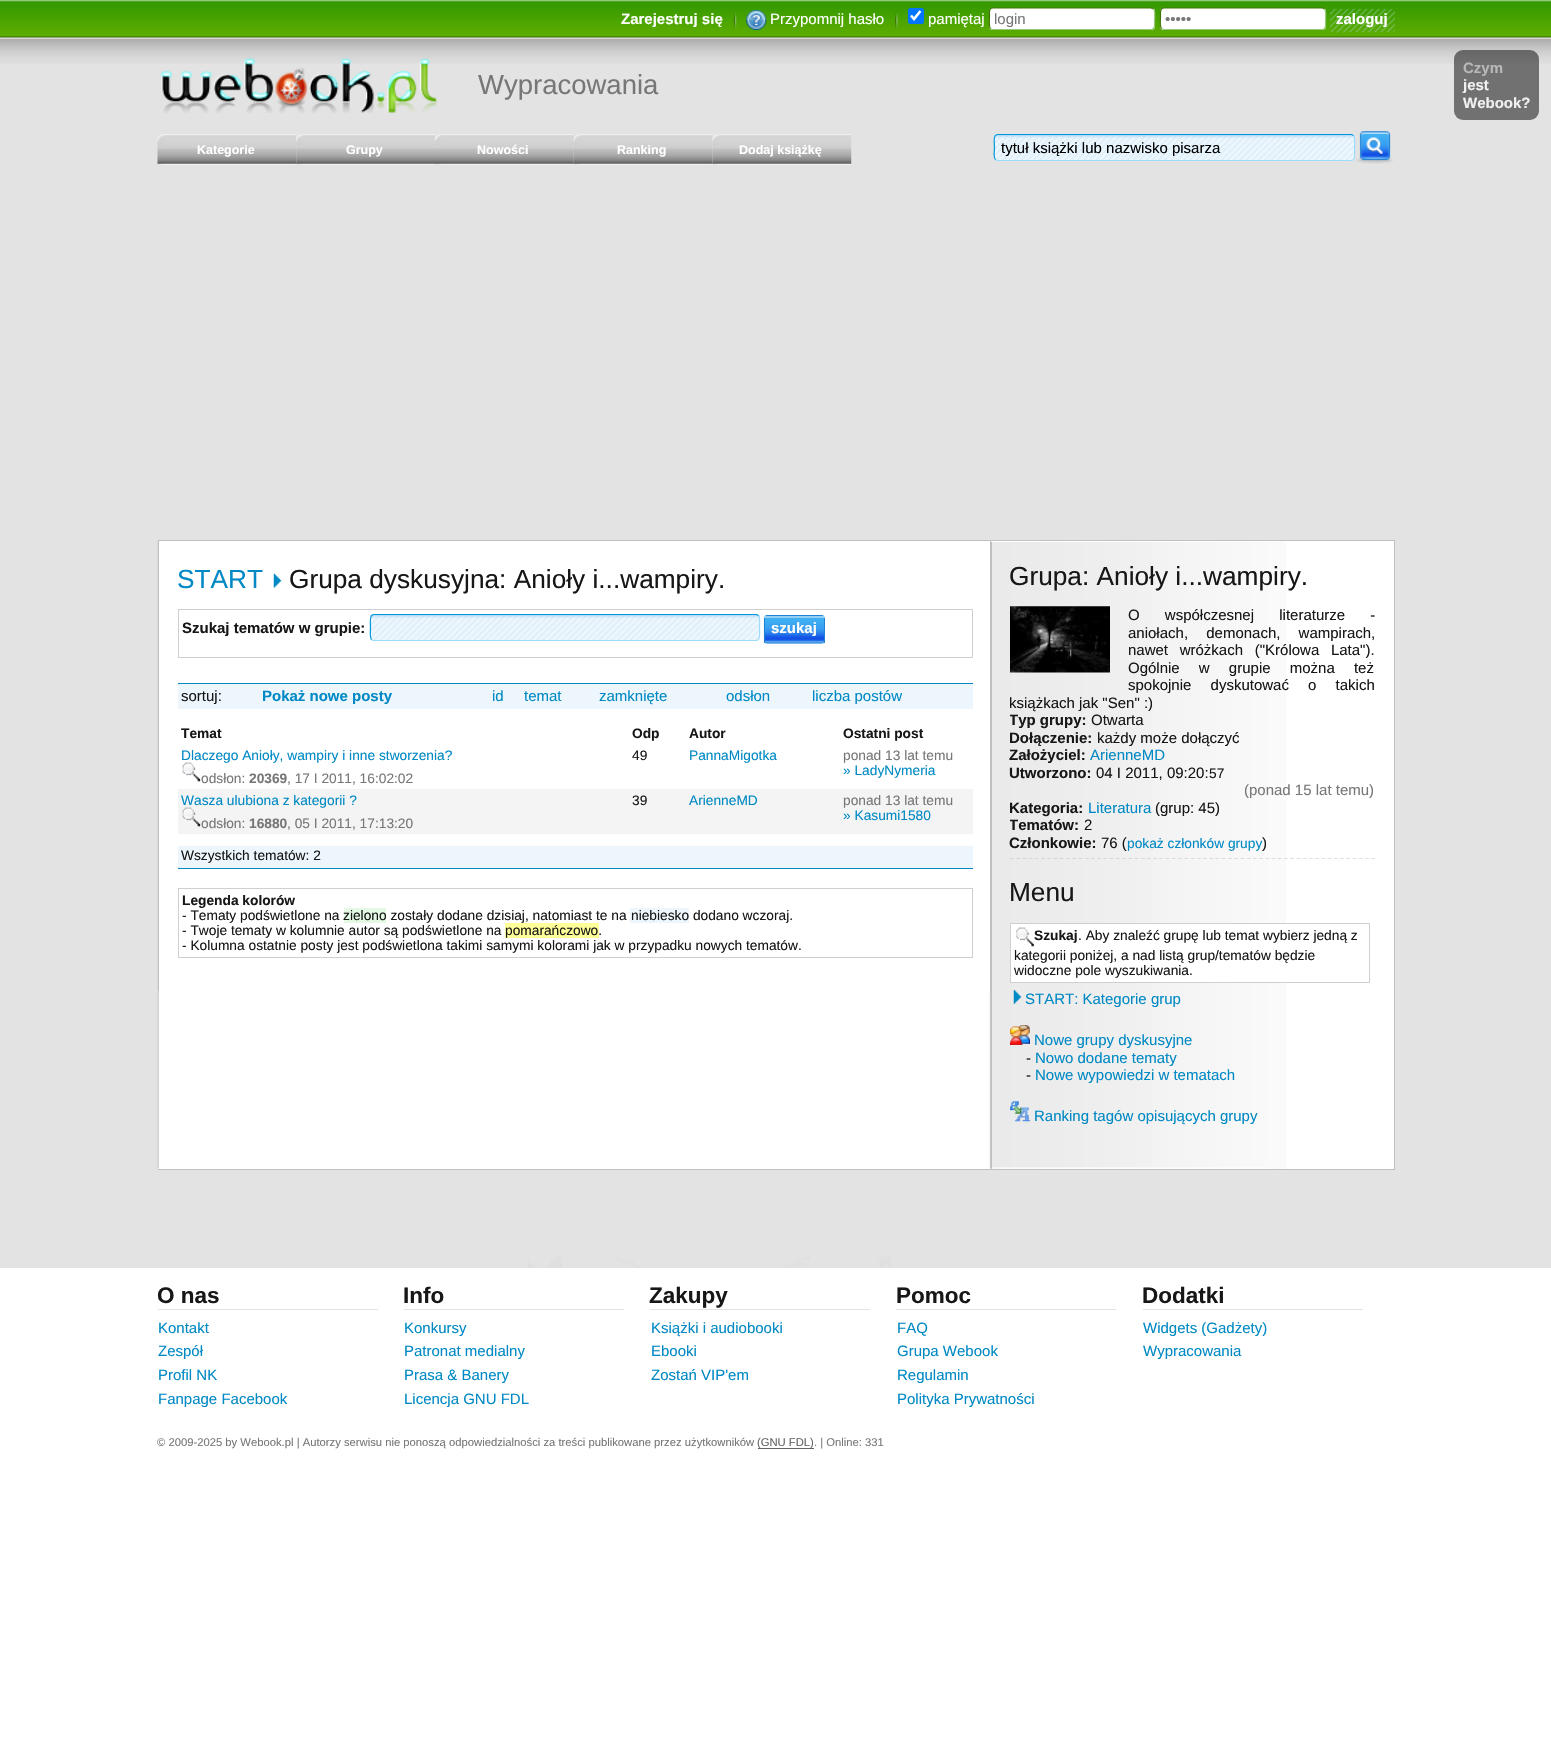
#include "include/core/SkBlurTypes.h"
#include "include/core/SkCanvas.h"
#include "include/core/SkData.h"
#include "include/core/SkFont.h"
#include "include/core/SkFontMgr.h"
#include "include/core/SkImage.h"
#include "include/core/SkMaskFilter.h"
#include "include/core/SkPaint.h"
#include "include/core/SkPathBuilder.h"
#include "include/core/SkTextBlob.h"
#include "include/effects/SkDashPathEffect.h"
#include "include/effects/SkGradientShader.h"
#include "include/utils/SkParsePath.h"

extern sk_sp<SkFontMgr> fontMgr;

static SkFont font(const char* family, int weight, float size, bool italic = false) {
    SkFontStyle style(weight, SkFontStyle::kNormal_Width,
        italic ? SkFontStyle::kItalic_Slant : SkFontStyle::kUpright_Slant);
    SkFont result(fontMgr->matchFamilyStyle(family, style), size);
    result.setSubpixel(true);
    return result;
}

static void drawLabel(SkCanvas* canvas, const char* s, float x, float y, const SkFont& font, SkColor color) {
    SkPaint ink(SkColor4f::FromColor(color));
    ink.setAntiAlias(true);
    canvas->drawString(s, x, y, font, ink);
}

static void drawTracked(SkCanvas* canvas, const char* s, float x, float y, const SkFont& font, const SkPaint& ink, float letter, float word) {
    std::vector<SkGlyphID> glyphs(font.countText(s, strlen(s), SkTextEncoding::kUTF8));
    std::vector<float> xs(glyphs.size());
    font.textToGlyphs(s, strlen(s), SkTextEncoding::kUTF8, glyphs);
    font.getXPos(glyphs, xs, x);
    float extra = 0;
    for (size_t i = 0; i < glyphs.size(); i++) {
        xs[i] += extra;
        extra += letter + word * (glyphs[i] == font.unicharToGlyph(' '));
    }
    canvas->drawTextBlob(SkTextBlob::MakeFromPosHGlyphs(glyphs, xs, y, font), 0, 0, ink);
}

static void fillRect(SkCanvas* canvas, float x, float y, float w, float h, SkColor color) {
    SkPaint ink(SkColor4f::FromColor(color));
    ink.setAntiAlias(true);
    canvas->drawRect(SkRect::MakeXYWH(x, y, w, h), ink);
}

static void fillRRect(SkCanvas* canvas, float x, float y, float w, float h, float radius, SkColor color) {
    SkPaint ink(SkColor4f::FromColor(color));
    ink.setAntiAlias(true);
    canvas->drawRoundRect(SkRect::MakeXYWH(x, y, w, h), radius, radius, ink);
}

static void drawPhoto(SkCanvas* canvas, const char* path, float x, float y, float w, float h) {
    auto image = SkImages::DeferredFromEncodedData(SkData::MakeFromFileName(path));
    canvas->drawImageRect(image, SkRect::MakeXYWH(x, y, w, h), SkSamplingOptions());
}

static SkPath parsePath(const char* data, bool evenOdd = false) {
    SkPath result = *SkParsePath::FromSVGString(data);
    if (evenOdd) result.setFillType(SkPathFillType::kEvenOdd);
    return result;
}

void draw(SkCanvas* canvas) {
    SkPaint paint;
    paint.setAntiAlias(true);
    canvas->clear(0xFFFFFFFF);
    fillRect(canvas, 0, 64, 1551, 1204, 0xFFE3E3E3);
    drawPhoto(canvas, "assets/img1.png", 0, 0, 1551, 64);
    SkFont font1 = font("Liberation Sans", 700, 15);
    drawLabel(canvas, "Zarejestruj się", 621, 24, font1, 0xFFFFFFFF);
    drawPhoto(canvas, "assets/img2.png", 733, 12, 4, 17);
    drawPhoto(canvas, "assets/img3.png", 746, 10, 21, 20);
    SkFont font2 = font("Liberation Sans", 400, 15);
    drawLabel(canvas, "Przypomnij hasło", 770, 24, font2, 0xFFFFFFFF);
    drawPhoto(canvas, "assets/img4.png", 895, 13, 3, 16);
    fillRRect(canvas, 908, 8, 16, 16, 2.5f, 0xFF0075FF);
    paint.setStroke(true);
    paint.setStrokeWidth(2.6f);
    paint.setColor(0xFFFFFFFF);
    canvas->drawPath(parsePath("M911 15.5L914 19L920.5 11"), paint);
    drawLabel(canvas, "pamiętaj", 928, 24, font2, 0xFFFFFFFF);
    fillRRect(canvas, 989, 8, 166, 22, 4, 0xFFFFFFFF);
    paint.setStrokeWidth(1.2f);
    paint.setColor(0xFF95C97B);
    canvas->drawPath(parsePath("M1153.5 9C1155.5 11 1154.5 18.5 1154.5 21C1154.5 23.5 1155.5 29.5 1151 29.5H992.5L990.5 28.5"), paint);
    paint.setColor(0xFF3E7502);
    canvas->drawPath(parsePath("M990.5 28.5C988.5 26.5 989.5 19 989.5 16C989.5 14 988.5 8 992.5 8H1151L1153.5 9"), paint);
    drawLabel(canvas, "login", 994, 24, font2, 0xFF777777);
    fillRRect(canvas, 1160, 8, 166, 22, 4, 0xFFFFFFFF);
    paint.setColor(0xFF95C97B);
    canvas->drawPath(parsePath("M1324.5 9C1326.5 11 1325.5 18.5 1325.5 21C1325.5 23.5 1326.5 29.5 1322.5 29.5H1164L1161.5 28.5"), paint);
    paint.setColor(0xFF3E7502);
    canvas->drawPath(parsePath("M1161.5 28.5C1159.5 26.5 1160.5 19 1160.5 16C1160.5 14 1159.5 8 1164 8H1322.5L1324.5 9"), paint);
    drawLabel(canvas, "•••••", 1165, 24, font2, 0xFF777777);
    drawPhoto(canvas, "assets/img5.png", 1330, 8, 65, 25);
    drawLabel(canvas, "zaloguj", 1336, 24, font1, 0xFFFFFFFF);
    drawPhoto(canvas, "assets/img6.png", 160, 57, 277, 56);
    SkFont font3 = font("Liberation Sans", 400, 27.5f);
    drawLabel(canvas, "Wypracowania", 478, 94, font3, 0xFF777777);
    drawPhoto(canvas, "assets/img7.png", 528, 1256, 363, 12);
    fillRRect(canvas, 1454, 50, 85, 70, 9, 0x80000000);
    drawLabel(canvas, "Czym", 1463, 73, font1, 0xFFB8B8B8);
    drawLabel(canvas, "jest", 1463, 90, font1, 0xFFF1F1F1);
    drawLabel(canvas, "Webook?", 1463, 108, font1, 0xFFF1F1F1);
    drawPhoto(canvas, "assets/img8.png", 157, 134, 140, 31);
    SkFont font4 = font("Liberation Sans", 700, 12.5f);
    drawLabel(canvas, "Kategorie", 197, 154, font4, 0xFFFFFFFF);
    drawPhoto(canvas, "assets/img9.png", 296, 134, 139, 31);
    drawLabel(canvas, "Grupy", 346, 154, font4, 0xFFFFFFFF);
    drawPhoto(canvas, "assets/img10.png", 435, 134, 139, 31);
    drawLabel(canvas, "Nowości", 477, 154, font4, 0xFFFFFFFF);
    drawPhoto(canvas, "assets/img11.png", 573, 134, 140, 31);
    drawLabel(canvas, "Ranking", 617, 154, font4, 0xFFFFFFFF);
    drawPhoto(canvas, "assets/img12.png", 712, 134, 140, 31);
    drawLabel(canvas, "Dodaj książkę", 739, 154, font4, 0xFFFFFFFF);
    fillRRect(canvas, 994, 134, 361, 27, 4, 0xFFECF6FC);
    drawPhoto(canvas, "assets/img13.png", 994, 135, 361, 26);
    paint.setColor(0xFF9ADBFF);
    canvas->drawPath(parsePath("M1353.5 135.5C1355.5 137.5 1354.5 145 1354.5 147.5C1354.5 150 1355.5 158.5 1353 160L1351 160.5H997L995.5 159.5"), paint);
    paint.setColor(0xFF0097DD);
    canvas->drawPath(parsePath("M995.5 159.5C993 157.5 994.5 150 994.5 147.5C994.5 145 993 136.5 996 135L997.5 134.5H1351.5L1353.5 135.5"), paint);
    canvas->save();
    canvas->clipRect(SkRect::MakeXYWH(1001, 139, 347, 17));
    drawLabel(canvas, "tytuł książki lub nazwisko pisarza", 1001, 153, font2, 0xFF000000);
    canvas->restore();
    drawPhoto(canvas, "assets/img14.png", 1356, 131, 37, 33);
    fillRect(canvas, 158, 542, 1236, 627, 0xFFFFFFFF);
    drawPhoto(canvas, "assets/img15.png", 992, 542, 294, 627);
    fillRect(canvas, 1394, 540, 1, 630, 0xFFBFC1BF);
    fillRect(canvas, 158, 1169, 1237, 1, 0xFFBFC1BF);
    drawPhoto(canvas, "assets/img16.png", 157, 1167, 1110, 2);
    drawPhoto(canvas, "assets/img17.png", 157, 540, 836, 629);
    fillRect(canvas, 989, 541, 1, 449, 0xFFFFFFFF);
    fillRect(canvas, 158, 540, 1236, 1, 0xFFBFC1BF);
    fillRect(canvas, 990, 540, 1, 450, 0xFFBFC1BF);
    fillRect(canvas, 158, 540, 1, 450, 0xFFBFC1BF);
    SkFont font5 = font("Liberation Sans", 400, 26.25f);
    drawLabel(canvas, "START", 177, 588, font5, 0xFF0089C4);
    drawPhoto(canvas, "assets/img18.png", 273, 573, 9, 15);
    drawLabel(canvas, "Grupa dyskusyjna: Anioły i...wampiry.", 289, 588, font5, 0xFF171717);
    paint.setStrokeWidth(1);
    paint.setColor(0xFFCFCFCF);
    canvas->drawRect(SkRect::MakeXYWH(178.5f, 609.5f, 794, 48), paint);
    drawLabel(canvas, "Szukaj tematów w grupie:", 182, 633, font1, 0xFF171717);
    fillRRect(canvas, 370, 614, 390, 27, 4, 0xFFECF6FC);
    drawPhoto(canvas, "assets/img19.png", 370, 615, 390, 26);
    paint.setStrokeWidth(1.2f);
    paint.setColor(0xFF9ADBFF);
    canvas->drawPath(parsePath("M758.5 615.5C760.5 617.5 759.5 625 759.5 627.5C759.5 630 760.5 638.5 758 640L756 640.5H373.5L371.5 639.5"), paint);
    paint.setColor(0xFF0097DD);
    canvas->drawPath(parsePath("M371.5 639.5C369.5 637.5 370.5 630 370.5 627.5C370.5 625 369.5 616.5 372 615L374 614.5H756.5L758.5 615.5"), paint);
    drawPhoto(canvas, "assets/img20.png", 763, 615, 62, 29);
    fillRect(canvas, 824, 618, 1, 25, 0xFF1D81D6);
    fillRect(canvas, 764, 618, 1, 25, 0xFF1D81D6);
    drawLabel(canvas, "szukaj", 771, 633, font1, 0xFFFFFFFF);
    fillRect(canvas, 178, 684, 795, 25, 0xFFECF6FC);
    fillRect(canvas, 178, 683, 795, 1, 0xFF0089C4);
    drawLabel(canvas, "sortuj:", 181, 701, font2, 0xFF171717);
    drawLabel(canvas, "Pokaż nowe posty", 262, 701, font1, 0xFF0089C4);
    drawLabel(canvas, "id", 492, 701, font2, 0xFF0089C4);
    drawLabel(canvas, "temat", 524, 701, font2, 0xFF0089C4);
    drawLabel(canvas, "zamknięte", 599, 701, font2, 0xFF0089C4);
    drawLabel(canvas, "odsłon", 726, 701, font2, 0xFF0089C4);
    drawLabel(canvas, "liczba postów", 812, 701, font2, 0xFF0089C4);
    SkFont font6 = font("Liberation Sans", 700, 13.75f);
    drawLabel(canvas, "Temat", 181, 738, font6, 0xFF171717);
    drawLabel(canvas, "Odp", 632, 738, font6, 0xFF171717);
    drawLabel(canvas, "Autor", 689, 738, font6, 0xFF171717);
    drawLabel(canvas, "Ostatni post", 843, 738, font6, 0xFF171717);
    SkFont font7 = font("Liberation Sans", 400, 13.75f);
    drawLabel(canvas, "Dlaczego Anioły, wampiry i inne stworzenia?", 181, 760, font7, 0xFF0089C4);
    drawPhoto(canvas, "assets/img21.png", 182, 762, 19, 20);
    drawLabel(canvas, "odsłon:", 201, 783, font7, 0xFF777777);
    drawLabel(canvas, "20369", 249, 783, font6, 0xFF777777);
    drawLabel(canvas, ", 17 I 2011, 16:02:02", 287, 783, font7, 0xFF777777);
    drawLabel(canvas, "49", 632, 760, font7, 0xFF171717);
    drawLabel(canvas, "PannaMigotka", 689, 760, font7, 0xFF0089C4);
    drawLabel(canvas, "ponad 13 lat temu", 843, 760, font7, 0xFF777777);
    drawLabel(canvas, "» LadyNymeria", 843, 775, font7, 0xFF0089C4);
    fillRect(canvas, 178, 789, 795, 45, 0xFFF4F4F4);
    drawLabel(canvas, "Wasza ulubiona z kategorii ?", 181, 805, font7, 0xFF0089C4);
    drawPhoto(canvas, "assets/img22.png", 182, 807, 19, 20);
    drawLabel(canvas, "odsłon:", 201, 828, font7, 0xFF777777);
    drawLabel(canvas, "16880", 249, 828, font6, 0xFF777777);
    drawLabel(canvas, ", 05 I 2011, 17:13:20", 287, 828, font7, 0xFF777777);
    drawLabel(canvas, "39", 632, 805, font7, 0xFF171717);
    drawLabel(canvas, "ArienneMD", 689, 805, font7, 0xFF0089C4);
    drawLabel(canvas, "ponad 13 lat temu", 843, 805, font7, 0xFF777777);
    drawLabel(canvas, "» Kasumi1580", 843, 820, font7, 0xFF0089C4);
    fillRect(canvas, 178, 846, 795, 22, 0xFFECF6FC);
    fillRect(canvas, 178, 868, 795, 1, 0xFF0089C4);
    drawLabel(canvas, "Wszystkich tematów: 2", 181, 860, font7, 0xFF171717);
    paint.setStrokeWidth(1);
    paint.setColor(0xFFCFCFCF);
    canvas->drawRect(SkRect::MakeXYWH(178.5f, 888.5f, 794, 69), paint);
    drawLabel(canvas, "Legenda kolorów", 182, 905, font6, 0xFF171717);
    drawLabel(canvas, "- Tematy podświetlone na", 182, 920, font7, 0xFF171717);
    fillRect(canvas, 344, 908, 42, 15, 0xFFE4F9E3);
    drawLabel(canvas, "zielono zostały dodane dzisiaj, natomiast te na", 343, 920, font7, 0xFF171717);
    fillRect(canvas, 630, 908, 59, 15, 0xFFECF6FC);
    drawLabel(canvas, "niebiesko dodano wczoraj.", 631, 920, font7, 0xFF171717);
    drawLabel(canvas, "- Twoje tematy w kolumnie autor są podświetlone na", 182, 935, font7, 0xFF171717);
    fillRect(canvas, 505, 923, 94, 15, 0xFFFFFF99);
    drawLabel(canvas, "pomarańczowo.", 505, 935, font7, 0xFF171717);
    drawLabel(canvas, "- Kolumna ostatnie posty jest podświetlona takimi samymi kolorami jak w przypadku nowych tematów.", 182, 950, font7, 0xFF171717);
    fillRect(canvas, 991, 541, 403, 1, 0xFFFFFFFF);
    drawLabel(canvas, "Grupa: Anioły i...wampiry.", 1009, 585, font5, 0xFF171717);
    drawPhoto(canvas, "assets/img23.png", 1010, 606, 100, 67);
    paint.setStroke(false);
    paint.setColor(0xFF171717);
    drawTracked(canvas, "O współczesnej literaturze -", 1128, 620, font2, paint, 0, 21);
    drawTracked(canvas, "aniołach, demonach, wampirach,", 1128, 638, font2, paint, 0, 14);
    drawTracked(canvas, "nawet wróżkach (\"Królowa Lata\").", 1128, 655, font2, paint, 0, 7.5f);
    drawTracked(canvas, "Ogólnie w grupie można też", 1128, 673, font2, paint, 0, 15);
    drawTracked(canvas, "spokojnie dyskutować o takich", 1128, 690, font2, paint, 0, 15);
    drawLabel(canvas, "książkach jak \"Sen\" :)", 1009, 708, font2, 0xFF171717);
    canvas->save();
    canvas->clipRect(SkRect::MakeXYWH(1010, 561, 365, 290));
    drawLabel(canvas, "Typ grupy:", 1009, 725, font1, 0xFF171717);
    canvas->restore();
    drawLabel(canvas, "Otwarta", 1091, 725, font2, 0xFF171717);
    drawLabel(canvas, "Dołączenie:", 1009, 743, font1, 0xFF171717);
    drawLabel(canvas, "każdy może dołączyć", 1097, 743, font2, 0xFF171717);
    drawLabel(canvas, "Założyciel:", 1009, 760, font1, 0xFF171717);
    drawLabel(canvas, "ArienneMD", 1090, 760, font2, 0xFF0089C4);
    drawLabel(canvas, "Utworzono:", 1009, 778, font1, 0xFF171717);
    drawLabel(canvas, "04 I 2011, 09:20:", 1096, 778, font2, 0xFF171717);
    drawLabel(canvas, "57", 1209, 778, font7, 0xFF171717);
    drawLabel(canvas, "(ponad 15 lat temu)", 1244, 795, font2, 0xFF777777);
    drawLabel(canvas, "Kategoria:", 1009, 813, font1, 0xFF171717);
    drawLabel(canvas, "Literatura", 1088, 813, font2, 0xFF0089C4);
    drawLabel(canvas, "(grup: 45)", 1155, 813, font2, 0xFF171717);
    canvas->save();
    canvas->clipRect(SkRect::MakeXYWH(1010, 561, 365, 290));
    drawLabel(canvas, "Tematów:", 1009, 830, font1, 0xFF171717);
    canvas->restore();
    drawLabel(canvas, "2", 1084, 830, font2, 0xFF171717);
    drawLabel(canvas, "Członkowie:", 1009, 848, font1, 0xFF171717);
    drawLabel(canvas, "76 (", 1101, 848, font2, 0xFF171717);
    drawLabel(canvas, "pokaż członków grupy", 1127, 848, font7, 0xFF0089C4);
    drawLabel(canvas, ")", 1262, 848, font2, 0xFF171717);
    canvas->save();
    canvas->clipRect(SkRect::MakeXYWH(1010, 858, 365, 267));
    paint.setStroke(true);
    paint.setStrokeWidth(1.2f);
    paint.setColor(0xFFBFC1BF);
    paint.setPathEffect(SkDashPathEffect::Make({{3.75f, 2.48f}}, 0));
    canvas->drawPath(parsePath("M1010 858H1375"), paint);
    paint.setPathEffect(nullptr);
    canvas->restore();
    drawLabel(canvas, "Menu", 1009, 901, font5, 0xFF171717);
    fillRect(canvas, 1011, 924, 275, 58, 0xFFFFFFFF);
    paint.setStrokeWidth(1);
    paint.setColor(0xFFCFCFCF);
    canvas->drawRect(SkRect::MakeXYWH(1010.5f, 923.5f, 359, 59), paint);
    drawPhoto(canvas, "assets/img24.png", 1016, 927, 18, 20);
    drawLabel(canvas, "Szukaj", 1034, 940, font6, 0xFF171717);
    drawLabel(canvas, ". Aby znaleźć grupę lub temat wybierz jedną z", 1078, 940, font7, 0xFF171717);
    drawLabel(canvas, "kategorii poniżej, a nad listą grup/tematów będzie", 1014, 960, font7, 0xFF171717);
    drawLabel(canvas, "widoczne pole wyszukiwania.", 1014, 975, font7, 0xFF171717);
    drawPhoto(canvas, "assets/img25.png", 1013, 990, 9, 14);
    drawLabel(canvas, "START: Kategorie grup", 1025, 1004, font2, 0xFF0089C4);
    drawPhoto(canvas, "assets/img26.png", 1010, 1025, 20, 20);
    drawLabel(canvas, "Nowe grupy dyskusyjne", 1034, 1045, font2, 0xFF0089C4);
    drawLabel(canvas, "-", 1026, 1063, font2, 0xFF171717);
    drawLabel(canvas, "Nowo dodane tematy", 1035, 1063, font2, 0xFF0089C4);
    drawLabel(canvas, "-", 1026, 1080, font2, 0xFF171717);
    drawLabel(canvas, "Nowe wypowiedzi w tematach", 1035, 1080, font2, 0xFF0089C4);
    drawPhoto(canvas, "assets/img27.png", 1010, 1101, 20, 21);
    drawLabel(canvas, "Ranking tagów opisujących grupy", 1034, 1121, font2, 0xFF0089C4);
    fillRect(canvas, 158, 1309, 220, 1, 0xFFE3E3E3);
    SkFont font8 = font("Liberation Sans", 700, 22.5f);
    drawLabel(canvas, "O nas", 157, 1303, font8, 0xFF171717);
    drawLabel(canvas, "Kontakt", 158, 1333, font2, 0xFF0089C4);
    drawLabel(canvas, "Zespół", 158, 1356, font2, 0xFF0089C4);
    drawLabel(canvas, "Profil NK", 158, 1380, font2, 0xFF0089C4);
    drawLabel(canvas, "Fanpage Facebook", 158, 1404, font2, 0xFF0089C4);
    fillRect(canvas, 404, 1309, 220, 1, 0xFFE3E3E3);
    drawLabel(canvas, "Info", 403, 1303, font8, 0xFF171717);
    drawLabel(canvas, "Konkursy", 404, 1333, font2, 0xFF0089C4);
    drawLabel(canvas, "Patronat medialny", 404, 1356, font2, 0xFF0089C4);
    drawLabel(canvas, "Prasa & Banery", 404, 1380, font2, 0xFF0089C4);
    drawLabel(canvas, "Licencja GNU FDL", 404, 1404, font2, 0xFF0089C4);
    fillRect(canvas, 650, 1309, 220, 1, 0xFFE3E3E3);
    drawLabel(canvas, "Zakupy", 649, 1303, font8, 0xFF171717);
    drawLabel(canvas, "Książki i audiobooki", 651, 1333, font2, 0xFF0089C4);
    drawLabel(canvas, "Ebooki", 651, 1356, font2, 0xFF0089C4);
    drawLabel(canvas, "Zostań VIP'em", 651, 1380, font2, 0xFF0089C4);
    fillRect(canvas, 896, 1309, 220, 1, 0xFFE3E3E3);
    drawLabel(canvas, "Pomoc", 896, 1303, font8, 0xFF171717);
    drawLabel(canvas, "FAQ", 897, 1333, font2, 0xFF0089C4);
    drawLabel(canvas, "Grupa Webook", 897, 1356, font2, 0xFF0089C4);
    drawLabel(canvas, "Regulamin", 897, 1380, font2, 0xFF0089C4);
    drawLabel(canvas, "Polityka Prywatności", 897, 1404, font2, 0xFF0089C4);
    fillRect(canvas, 1143, 1309, 220, 1, 0xFFE3E3E3);
    drawLabel(canvas, "Dodatki", 1142, 1303, font8, 0xFF171717);
    drawLabel(canvas, "Widgets (Gadżety)", 1143, 1333, font2, 0xFF0089C4);
    drawLabel(canvas, "Wypracowania", 1143, 1356, font2, 0xFF0089C4);
    SkFont font9 = font("Liberation Sans", 400, 11.25f);
    drawLabel(canvas, "© 2009-2025 by Webook.pl | Autorzy serwisu nie ponoszą odpowiedzialności za treści publikowane przez użytkowników", 157, 1446, font9, 0xFF777777);
    fillRect(canvas, 758, 1448, 56, 1, 0xFF636363);
    drawLabel(canvas, "(GNU FDL)", 757, 1446, font9, 0xFF636363);
    drawLabel(canvas, ". | Online: 331", 814, 1446, font9, 0xFF777777);
}
